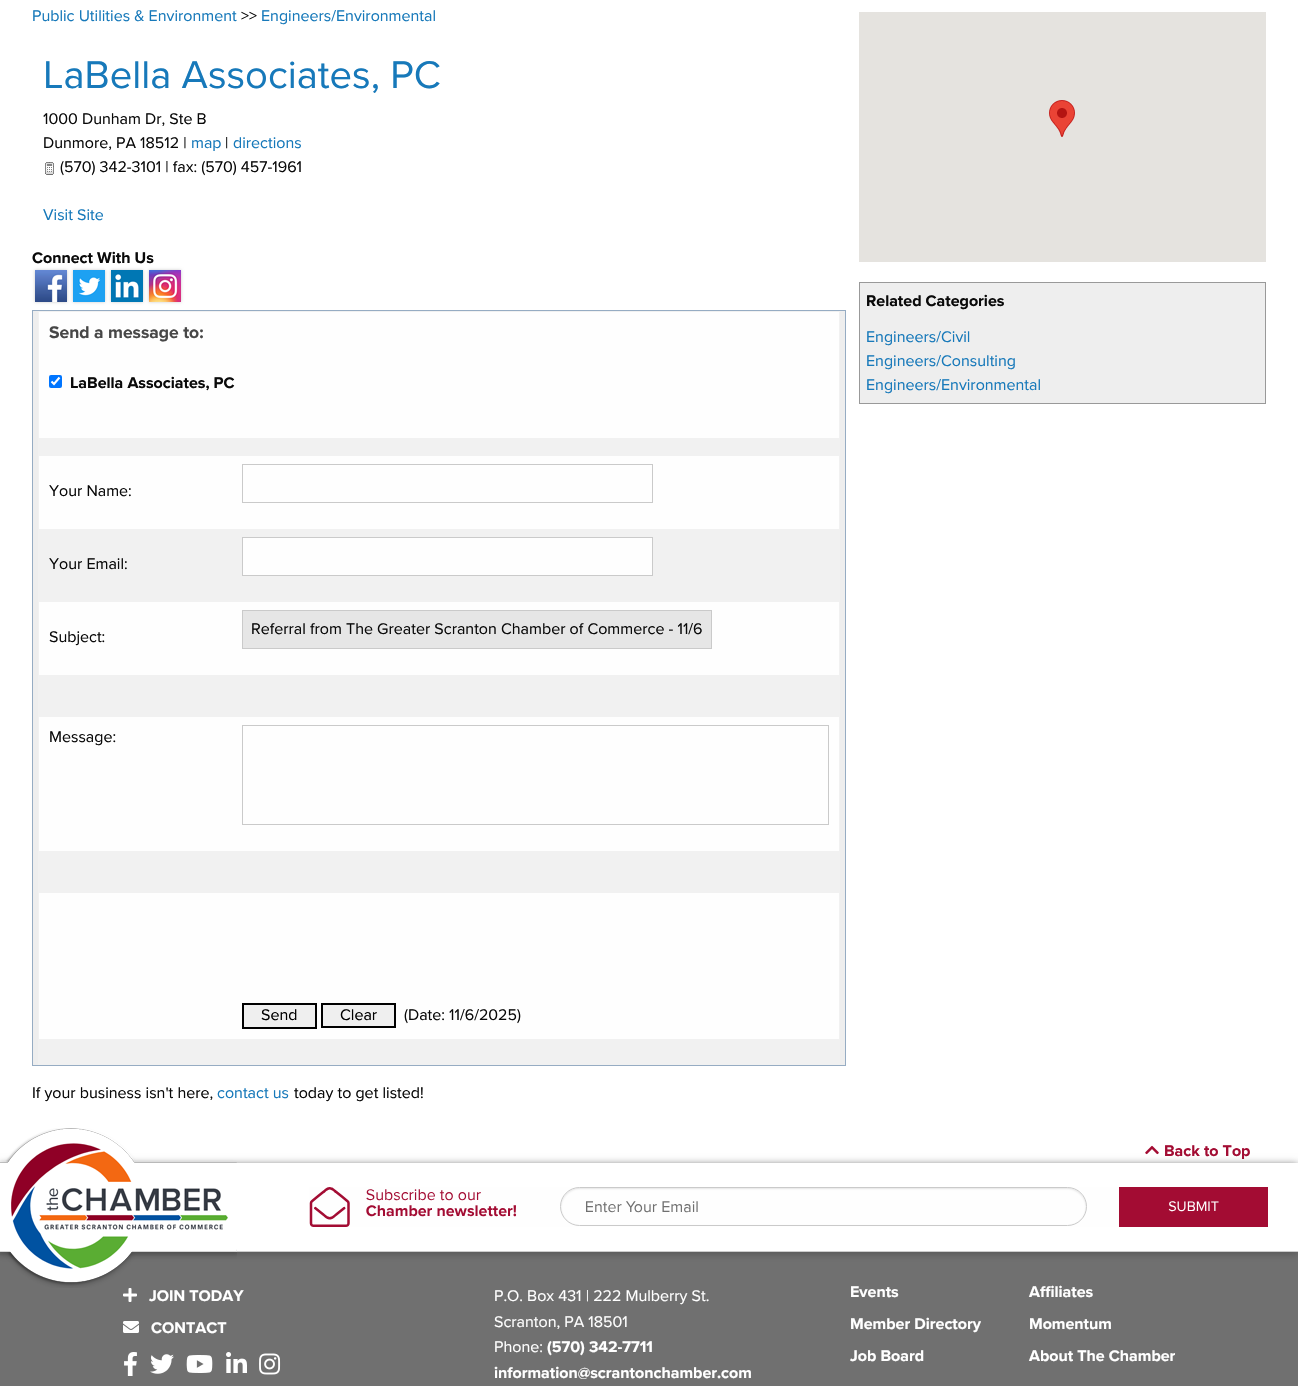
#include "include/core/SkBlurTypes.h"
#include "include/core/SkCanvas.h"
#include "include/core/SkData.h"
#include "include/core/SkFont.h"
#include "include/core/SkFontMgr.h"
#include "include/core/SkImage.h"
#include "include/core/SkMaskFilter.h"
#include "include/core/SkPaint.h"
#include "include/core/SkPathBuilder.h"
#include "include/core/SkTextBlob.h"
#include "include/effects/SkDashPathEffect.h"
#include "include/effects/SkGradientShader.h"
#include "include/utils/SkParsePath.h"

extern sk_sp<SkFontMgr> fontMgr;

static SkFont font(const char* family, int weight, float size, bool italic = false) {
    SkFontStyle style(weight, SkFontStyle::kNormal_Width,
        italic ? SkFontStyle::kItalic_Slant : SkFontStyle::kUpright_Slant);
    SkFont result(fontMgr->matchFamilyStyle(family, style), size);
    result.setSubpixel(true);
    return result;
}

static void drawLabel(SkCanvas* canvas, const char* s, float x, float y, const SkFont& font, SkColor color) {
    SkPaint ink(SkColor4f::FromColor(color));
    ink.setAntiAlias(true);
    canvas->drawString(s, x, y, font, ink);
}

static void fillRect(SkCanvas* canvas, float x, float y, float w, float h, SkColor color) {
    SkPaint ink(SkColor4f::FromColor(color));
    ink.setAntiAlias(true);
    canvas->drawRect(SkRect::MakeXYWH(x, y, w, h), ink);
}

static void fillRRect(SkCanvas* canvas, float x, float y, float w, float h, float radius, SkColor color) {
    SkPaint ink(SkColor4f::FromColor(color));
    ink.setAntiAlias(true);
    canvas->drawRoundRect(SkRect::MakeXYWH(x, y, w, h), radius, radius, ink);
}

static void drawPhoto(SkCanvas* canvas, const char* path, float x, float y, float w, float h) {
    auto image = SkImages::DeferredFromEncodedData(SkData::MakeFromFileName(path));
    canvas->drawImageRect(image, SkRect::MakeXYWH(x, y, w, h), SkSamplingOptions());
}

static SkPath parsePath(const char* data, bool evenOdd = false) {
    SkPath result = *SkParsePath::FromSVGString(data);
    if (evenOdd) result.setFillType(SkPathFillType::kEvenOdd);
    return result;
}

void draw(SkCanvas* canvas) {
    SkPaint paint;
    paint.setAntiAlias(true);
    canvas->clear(0xFFFFFFFF);
    SkFont font1 = font("Proxima Nova", 400, 16);
    drawLabel(canvas, "Public Utilities & Environment", 32, 21, font1, 0xFF1779BA);
    drawLabel(canvas, ">>", 241, 21, font1, 0xFF0A0A0A);
    drawLabel(canvas, "Engineers/Environmental", 261, 21, font1, 0xFF1779BA);
    SkFont font2 = font("Proxima Nova", 400, 40);
    drawLabel(canvas, "LaBella Associates, PC", 43, 88, font2, 0xFF1779BA);
    drawLabel(canvas, "1000 Dunham Dr, Ste B", 43, 124, font1, 0xFF0A0A0A);
    drawLabel(canvas, "Dunmore, PA 18512 |", 43, 148, font1, 0xFF0A0A0A);
    drawLabel(canvas, "map", 191, 148, font1, 0xFF1779BA);
    drawLabel(canvas, "|", 225, 148, font1, 0xFF0A0A0A);
    drawLabel(canvas, "directions", 233, 148, font1, 0xFF1779BA);
    drawPhoto(canvas, "assets/img1.png", 45, 162, 9, 13);
    drawLabel(canvas, "(570) 342-3101 | fax: (570) 457-1961", 60, 172, font1, 0xFF0A0A0A);
    drawLabel(canvas, "Visit Site", 43, 220, font1, 0xFF1779BA);
    SkFont font3 = font("Proxima Nova", 700, 16);
    drawLabel(canvas, "Connect With Us", 32, 263, font3, 0xFF0A0A0A);
    paint.setColor(0x33000000);
    paint.setMaskFilter(SkMaskFilter::MakeBlur(kNormal_SkBlurStyle, 1.5f));
    canvas->drawRect(SkRect::MakeXYWH(35, 270, 32, 32), paint);
    paint.setMaskFilter(nullptr);
    drawPhoto(canvas, "assets/img2.png", 35, 270, 32, 32);
    paint.setMaskFilter(SkMaskFilter::MakeBlur(kNormal_SkBlurStyle, 1.5f));
    canvas->drawRect(SkRect::MakeXYWH(73, 270, 32, 32), paint);
    paint.setMaskFilter(nullptr);
    drawPhoto(canvas, "assets/img3.png", 73, 270, 32, 32);
    paint.setMaskFilter(SkMaskFilter::MakeBlur(kNormal_SkBlurStyle, 1.5f));
    canvas->drawRect(SkRect::MakeXYWH(111, 270, 32, 32), paint);
    paint.setMaskFilter(nullptr);
    drawPhoto(canvas, "assets/img4.png", 111, 270, 32, 32);
    paint.setMaskFilter(SkMaskFilter::MakeBlur(kNormal_SkBlurStyle, 1.5f));
    canvas->drawRect(SkRect::MakeXYWH(149, 270, 32, 32), paint);
    paint.setMaskFilter(nullptr);
    drawPhoto(canvas, "assets/img5.png", 149, 270, 32, 32);
    paint.setColor(0xFFEEEEEE);
    canvas->drawRect(SkRect::MakeXYWH(32.5f, 310.5f, 813, 755), paint);
    paint.setStroke(true);
    paint.setStrokeWidth(1);
    paint.setColor(0xFF96ACC3);
    canvas->drawRect(SkRect::MakeXYWH(32.5f, 310.5f, 813, 755), paint);
    fillRect(canvas, 39, 312, 800, 727, 0xFFFEFEFE);
    fillRect(canvas, 38, 311, 802, 1, 0xFFF1F1F1);
    fillRect(canvas, 839, 311, 1, 754, 0xFFF1F1F1);
    fillRect(canvas, 38, 1064, 802, 1, 0xFFF1F1F1);
    fillRect(canvas, 38, 311, 1, 754, 0xFFF1F1F1);
    SkFont font4 = font("Proxima Nova", 700, 17.5f);
    drawLabel(canvas, "Send a message to:", 49, 338, font4, 0xFF474747);
    fillRRect(canvas, 49, 375, 13, 13, 2, 0xFF0075FF);
    paint.setStrokeWidth(2.1f);
    paint.setColor(0xFFFFFFFF);
    canvas->drawPath(parsePath("M51.5 381.5L54 384L59.5 377.5"), paint);
    drawLabel(canvas, "LaBella Associates, PC", 70, 388, font3, 0xFF0A0A0A);
    fillRect(canvas, 39, 438, 800, 18, 0xFFF1F1F1);
    drawLabel(canvas, "Your Name:", 49, 496, font1, 0xFF0A0A0A);
    paint.setStrokeWidth(1);
    paint.setColor(0xFFCACACA);
    canvas->drawRect(SkRect::MakeXYWH(242.5f, 464.5f, 410, 38), paint);
    fillRect(canvas, 39, 529, 800, 73, 0xFFF1F1F1);
    drawLabel(canvas, "Your Email:", 49, 569, font1, 0xFF0A0A0A);
    paint.setStroke(false);
    paint.setColor(0xFFFEFEFE);
    canvas->drawRect(SkRect::MakeXYWH(242.5f, 537.5f, 410, 38), paint);
    paint.setStroke(true);
    paint.setColor(0xFFCACACA);
    canvas->drawRect(SkRect::MakeXYWH(242.5f, 537.5f, 410, 38), paint);
    paint.setStroke(false);
    paint.setColor(0xFFE6E6E6);
    canvas->drawRect(SkRect::MakeXYWH(242.5f, 610.5f, 469, 38), paint);
    paint.setStroke(true);
    paint.setColor(0xFFCACACA);
    canvas->drawRect(SkRect::MakeXYWH(242.5f, 610.5f, 469, 38), paint);
    drawLabel(canvas, "Referral from The Greater Scranton Chamber of Commerce - 11/6", 251, 634, font1, 0xFF0A0A0A);
    drawLabel(canvas, "Subject:", 49, 642, font1, 0xFF0A0A0A);
    fillRect(canvas, 39, 675, 800, 42, 0xFFF1F1F1);
    drawLabel(canvas, "Message:", 49, 742, font1, 0xFF0A0A0A);
    canvas->drawRect(SkRect::MakeXYWH(242.5f, 725.5f, 586, 99), paint);
    fillRect(canvas, 39, 851, 800, 42, 0xFFF1F1F1);
    paint.setStroke(false);
    paint.setColor(0xFFEFEFEF);
    canvas->drawRect(SkRect::MakeXYWH(243, 1004, 73, 24), paint);
    paint.setStroke(true);
    paint.setStrokeWidth(2);
    paint.setColor(0xFF000000);
    canvas->drawRect(SkRect::MakeXYWH(243, 1004, 73, 24), paint);
    drawLabel(canvas, "Send", 261, 1020, font1, 0xFF000000);
    paint.setStroke(false);
    paint.setColor(0xFFEFEFEF);
    canvas->drawRect(SkRect::MakeXYWH(322, 1004, 73, 23), paint);
    paint.setStroke(true);
    paint.setColor(0xFF000000);
    canvas->drawRect(SkRect::MakeXYWH(322, 1004, 73, 23), paint);
    drawLabel(canvas, "Clear", 340, 1020, font1, 0xFF000000);
    drawLabel(canvas, "(Date: 11/6/2025)", 404, 1020, font1, 0xFF0A0A0A);
    fillRect(canvas, 39, 1039, 800, 25, 0xFFF1F1F1);
    drawLabel(canvas, "If your business isn't here,", 32, 1098, font1, 0xFF0A0A0A);
    drawLabel(canvas, "contact us", 217, 1098, font1, 0xFF1779BA);
    drawLabel(canvas, "today to get listed!", 294, 1098, font1, 0xFF0A0A0A);
    fillRect(canvas, 859, 12, 407, 250, 0xFFE5E3DF);
    drawPhoto(canvas, "assets/img6.png", 1049, 100, 26, 37);
    paint.setStroke(false);
    paint.setColor(0xFFEEEEEE);
    canvas->drawRect(SkRect::MakeXYWH(859.5f, 282.5f, 406, 121), paint);
    paint.setStroke(true);
    paint.setStrokeWidth(1);
    paint.setColor(0xFF999999);
    canvas->drawRect(SkRect::MakeXYWH(859.5f, 282.5f, 406, 121), paint);
    drawLabel(canvas, "Related Categories", 866, 306, font3, 0xFF0A0A0A);
    drawLabel(canvas, "Engineers/Civil", 866, 342, font1, 0xFF1779BA);
    drawLabel(canvas, "Engineers/Consulting", 866, 366, font1, 0xFF1779BA);
    drawLabel(canvas, "Engineers/Environmental", 866, 390, font1, 0xFF1779BA);
    drawPhoto(canvas, "assets/img7.png", 1145, 1145, 14, 10);
    drawLabel(canvas, "Back to Top", 1164, 1156, font3, 0xFFA30C33);
    fillRect(canvas, 0, 1252, 1298, 134, 0xFF707070);
    canvas->save();
    canvas->clipPath(parsePath("M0 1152H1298V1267H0ZM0 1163H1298V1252H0Z", true), true);
    paint.setStroke(false);
    paint.setColor(0xFF555555);
    paint.setMaskFilter(SkMaskFilter::MakeBlur(kNormal_SkBlurStyle, 4));
    canvas->drawRect(SkRect::MakeXYWH(0, 1165, 1298, 89), paint);
    paint.setMaskFilter(nullptr);
    canvas->restore();
    fillRect(canvas, 0, 1251, 1298, 1, 0xFFCCCCCC);
    drawPhoto(canvas, "assets/img8.png", 0, 1128, 237, 160);
    drawPhoto(canvas, "assets/img9.png", 309, 1187, 959, 40);
    drawPhoto(canvas, "assets/img10.png", 123, 1288, 14, 14);
    drawLabel(canvas, "JOIN TODAY", 149, 1301, font3, 0xFFFFFFFF);
    drawPhoto(canvas, "assets/img11.png", 123, 1321, 16, 12);
    drawLabel(canvas, "CONTACT", 151, 1333, font3, 0xFFFFFFFF);
    drawPhoto(canvas, "assets/img12.png", 124, 1352, 13, 24);
    drawPhoto(canvas, "assets/img13.png", 150, 1354, 24, 20);
    drawPhoto(canvas, "assets/img14.png", 186, 1355, 27, 18);
    drawPhoto(canvas, "assets/img15.png", 226, 1352, 21, 21);
    drawPhoto(canvas, "assets/img16.png", 259, 1353, 22, 22);
    drawLabel(canvas, "P.O. Box 431 | 222 Mulberry St.", 494, 1301, font1, 0xFFFFFFFF);
    drawLabel(canvas, "Scranton, PA 18501", 494, 1327, font1, 0xFFFFFFFF);
    drawLabel(canvas, "Phone:", 494, 1352, font1, 0xFFFFFFFF);
    drawLabel(canvas, "(570) 342-7711", 547, 1352, font3, 0xFFFFFFFF);
    drawLabel(canvas, "information@scrantonchamber.com", 494, 1378, font3, 0xFFFFFFFF);
    drawLabel(canvas, "Events", 850, 1297, font3, 0xFFFFFFFF);
    drawLabel(canvas, "Member Directory", 850, 1329, font3, 0xFFFFFFFF);
    drawLabel(canvas, "Job Board", 850, 1361, font3, 0xFFFFFFFF);
    drawLabel(canvas, "Affiliates", 1029, 1297, font3, 0xFFFFFFFF);
    drawLabel(canvas, "Momentum", 1029, 1329, font3, 0xFFFFFFFF);
    drawLabel(canvas, "About The Chamber", 1029, 1361, font3, 0xFFFFFFFF);
}
